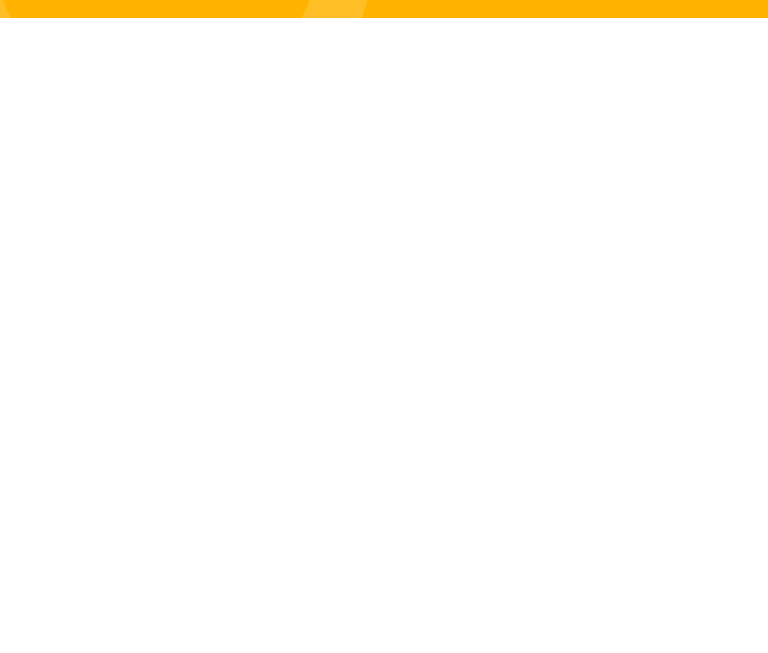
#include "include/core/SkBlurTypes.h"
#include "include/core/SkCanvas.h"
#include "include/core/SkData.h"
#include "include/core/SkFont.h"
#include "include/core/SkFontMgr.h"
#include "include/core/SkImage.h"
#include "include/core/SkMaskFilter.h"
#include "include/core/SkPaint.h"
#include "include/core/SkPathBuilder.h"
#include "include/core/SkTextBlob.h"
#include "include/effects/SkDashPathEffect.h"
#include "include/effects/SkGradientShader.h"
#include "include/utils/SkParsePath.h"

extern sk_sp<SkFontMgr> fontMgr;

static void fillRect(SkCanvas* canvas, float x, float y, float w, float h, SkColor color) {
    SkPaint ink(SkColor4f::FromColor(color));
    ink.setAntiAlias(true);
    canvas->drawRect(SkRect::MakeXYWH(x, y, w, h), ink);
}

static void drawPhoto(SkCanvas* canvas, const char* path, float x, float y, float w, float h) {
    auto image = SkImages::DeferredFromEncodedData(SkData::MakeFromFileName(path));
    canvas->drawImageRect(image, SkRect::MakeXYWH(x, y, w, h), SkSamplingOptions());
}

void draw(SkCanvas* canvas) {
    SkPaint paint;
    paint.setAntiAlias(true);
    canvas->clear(0xFFFFFFFF);
    fillRect(canvas, 0, 0, 768, 18, 0xFFFFB300);
    drawPhoto(canvas, "assets/img1.png", 0, 0, 367, 18);
}
